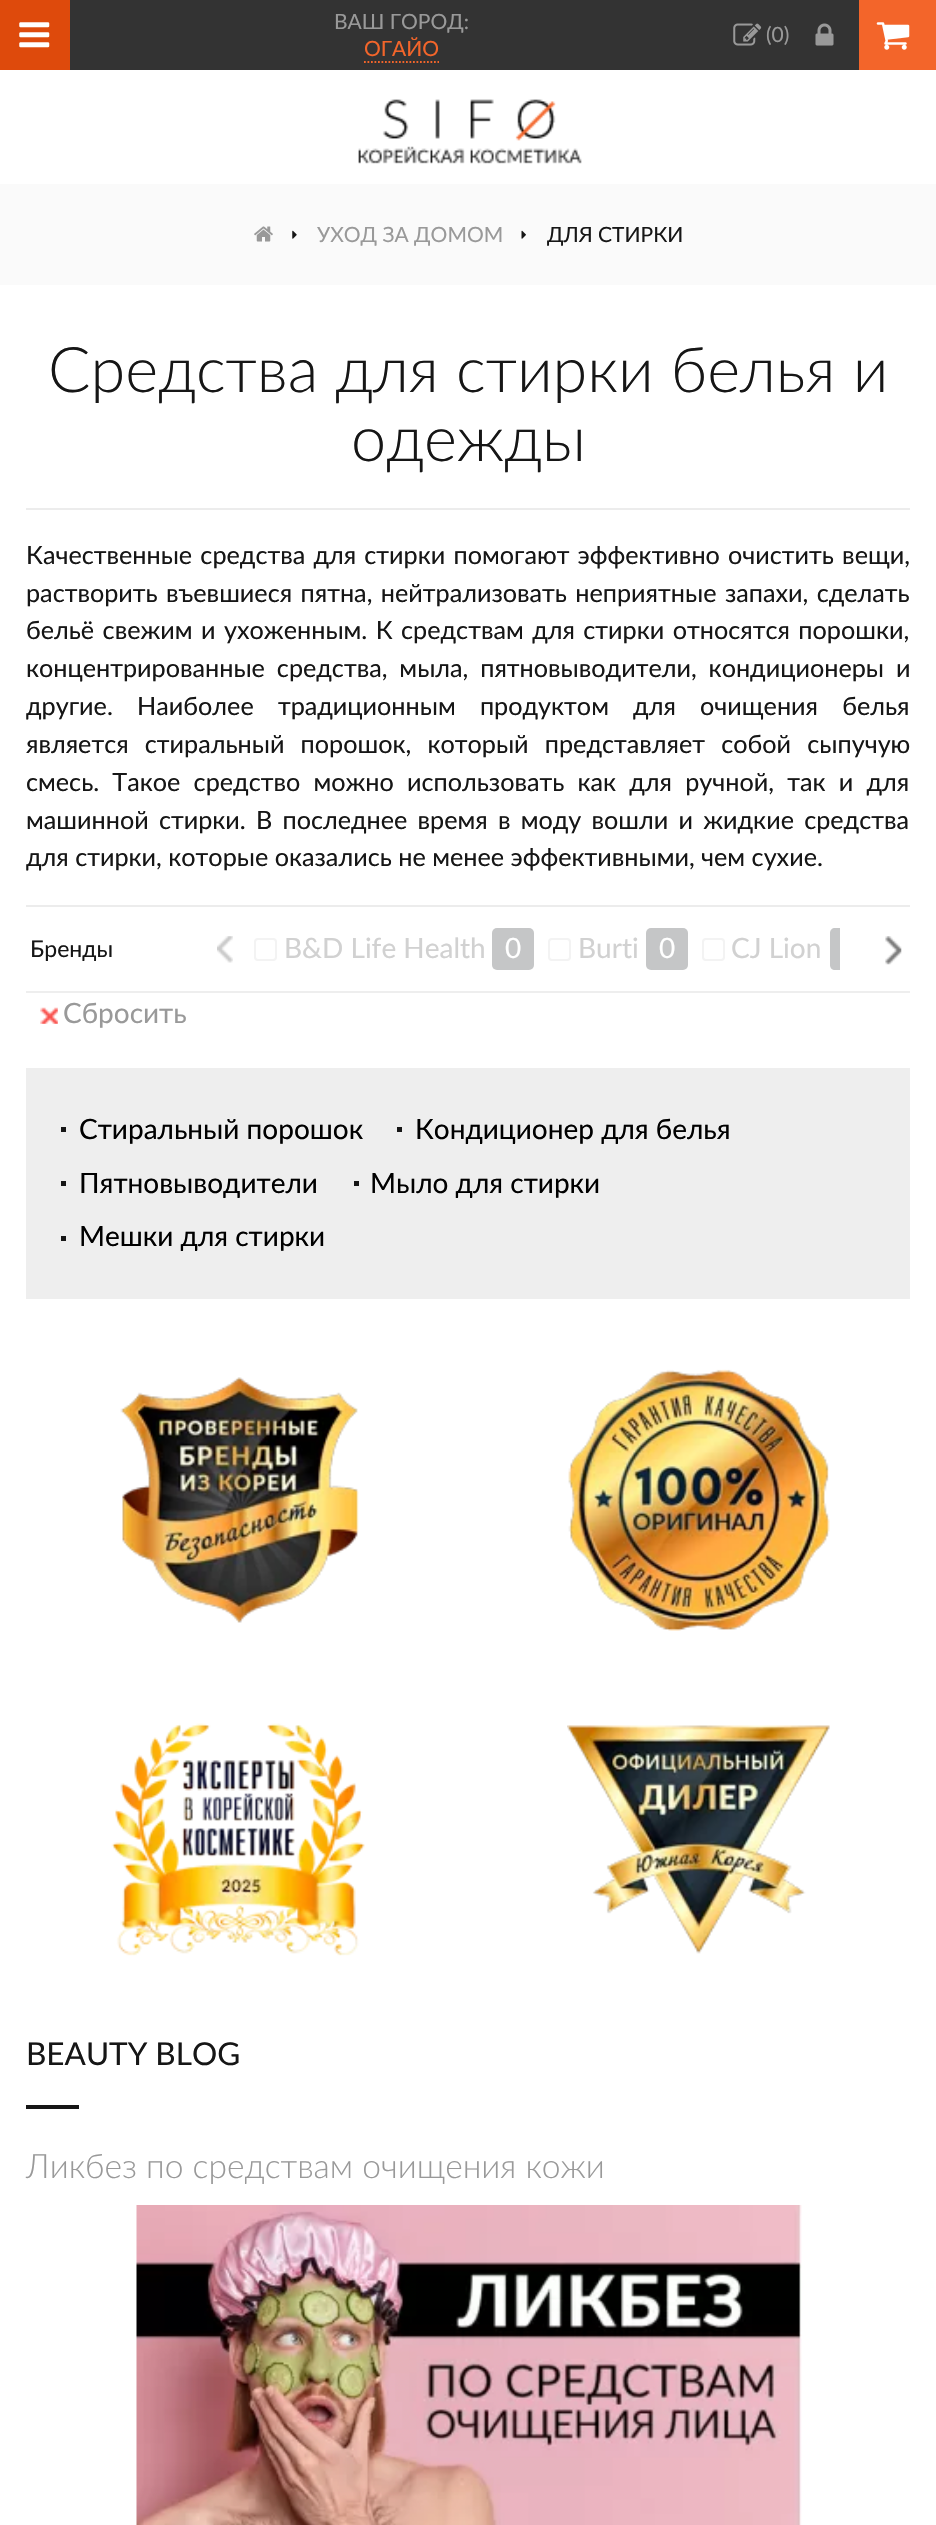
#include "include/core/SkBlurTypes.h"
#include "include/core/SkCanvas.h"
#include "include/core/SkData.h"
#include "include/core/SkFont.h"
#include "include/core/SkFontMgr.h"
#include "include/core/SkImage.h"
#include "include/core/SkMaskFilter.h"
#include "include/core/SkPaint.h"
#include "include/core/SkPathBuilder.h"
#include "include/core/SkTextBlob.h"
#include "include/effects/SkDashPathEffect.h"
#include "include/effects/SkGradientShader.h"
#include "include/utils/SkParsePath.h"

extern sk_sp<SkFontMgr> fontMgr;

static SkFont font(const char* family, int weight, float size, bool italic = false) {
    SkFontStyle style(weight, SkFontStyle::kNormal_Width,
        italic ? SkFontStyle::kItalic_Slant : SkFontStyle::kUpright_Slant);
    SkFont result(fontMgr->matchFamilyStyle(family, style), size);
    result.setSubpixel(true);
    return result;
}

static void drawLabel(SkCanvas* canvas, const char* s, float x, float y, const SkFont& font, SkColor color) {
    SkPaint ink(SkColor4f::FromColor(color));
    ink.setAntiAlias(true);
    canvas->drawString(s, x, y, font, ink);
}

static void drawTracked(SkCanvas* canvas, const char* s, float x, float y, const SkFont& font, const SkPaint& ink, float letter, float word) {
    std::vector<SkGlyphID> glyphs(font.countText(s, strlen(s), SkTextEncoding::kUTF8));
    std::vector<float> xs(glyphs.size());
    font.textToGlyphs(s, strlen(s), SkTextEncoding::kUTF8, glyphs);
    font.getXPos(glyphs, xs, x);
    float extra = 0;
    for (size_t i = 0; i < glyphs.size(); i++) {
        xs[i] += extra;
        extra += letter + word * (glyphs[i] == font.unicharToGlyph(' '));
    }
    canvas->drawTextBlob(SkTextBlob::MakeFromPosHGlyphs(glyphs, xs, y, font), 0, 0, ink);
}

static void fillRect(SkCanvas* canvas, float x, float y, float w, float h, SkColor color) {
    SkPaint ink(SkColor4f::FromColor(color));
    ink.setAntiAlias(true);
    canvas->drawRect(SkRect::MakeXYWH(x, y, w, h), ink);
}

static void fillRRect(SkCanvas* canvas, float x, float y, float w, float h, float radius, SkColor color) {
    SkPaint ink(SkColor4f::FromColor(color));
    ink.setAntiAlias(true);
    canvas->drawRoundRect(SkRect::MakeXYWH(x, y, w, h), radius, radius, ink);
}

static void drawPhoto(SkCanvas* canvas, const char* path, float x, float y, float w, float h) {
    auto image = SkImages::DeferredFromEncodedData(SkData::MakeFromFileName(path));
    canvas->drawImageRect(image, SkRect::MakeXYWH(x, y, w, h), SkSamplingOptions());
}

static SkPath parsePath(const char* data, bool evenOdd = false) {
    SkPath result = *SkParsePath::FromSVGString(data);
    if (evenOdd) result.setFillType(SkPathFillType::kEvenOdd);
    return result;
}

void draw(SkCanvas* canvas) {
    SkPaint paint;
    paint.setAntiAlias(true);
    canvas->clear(0xFFFFFFFF);
    fillRect(canvas, 70, 0, 789, 70, 0xFF333333);
    fillRect(canvas, 0, 0, 70, 70, 0xFFDE4A0C);
    drawPhoto(canvas, "assets/img1.png", 19, 22, 31, 26);
    SkFont font1 = font("Lato", 400, 21);
    drawLabel(canvas, "ВАШ ГОРОД:", 334, 29, font1, 0xFF999999);
    drawLabel(canvas, "ОГАЙО", 364, 56, font1, 0xFFF3652A);
    paint.setStroke(true);
    paint.setStrokeWidth(1.8f);
    paint.setColor(0xFFF3652A);
    paint.setPathEffect(SkDashPathEffect::Make({{1.75f, 1.75f}}, 0));
    canvas->drawPath(parsePath("M364 62H439"), paint);
    paint.setPathEffect(nullptr);
    drawPhoto(canvas, "assets/img2.png", 733, 23, 29, 23);
    drawLabel(canvas, "(0)", 766, 42, font1, 0xFF999999);
    drawPhoto(canvas, "assets/img3.png", 815, 23, 19, 23);
    fillRect(canvas, 859, 0, 77, 70, 0xFFF3652A);
    drawPhoto(canvas, "assets/img4.png", 876, 22, 34, 28);
    drawPhoto(canvas, "assets/img5.png", 358, 99, 224, 65);
    fillRect(canvas, 0, 184, 936, 101, 0xFFFAFAFA);
    drawPhoto(canvas, "assets/img6.png", 254, 226, 19, 16);
    drawPhoto(canvas, "assets/img7.png", 292, 230, 5, 9);
    drawLabel(canvas, "УХОД ЗА ДОМОМ", 317, 242, font1, 0xFF999999);
    drawPhoto(canvas, "assets/img8.png", 521, 230, 5, 9);
    drawLabel(canvas, "ДЛЯ СТИРКИ", 547, 242, font1, 0xFF161616);
    fillRect(canvas, 26, 508, 884, 2, 0xFFECECEC);
    SkFont font2 = font("Lato", 300, 63);
    drawLabel(canvas, "Средства для стирки белья и", 48, 392, font2, 0xFF161616);
    drawLabel(canvas, "одежды", 351, 461, font2, 0xFF161616);
    fillRect(canvas, 26, 905, 884, 2, 0xFFECECEC);
    SkFont font3 = font("Lato", 400, 25.2f);
    paint.setStroke(false);
    paint.setColor(0xFF161616);
    drawTracked(canvas, "Качественные средства для стирки помогают эффективно очистить вещи,", 26, 564, font3, paint, 0, 1.75f);
    drawTracked(canvas, "растворить въевшиеся пятна, нейтрализовать неприятные запахи, сделать", 26, 602, font3, paint, 0, 2);
    drawTracked(canvas, "бельё свежим и ухоженным. К средствам для стирки относятся порошки,", 26, 639, font3, paint, 0, 2);
    drawTracked(canvas, "концентрированные средства, мыла, пятновыводители, кондиционеры и", 26, 677, font3, paint, 0, 5.5f);
    drawTracked(canvas, "другие. Наиболее традиционным продуктом для очищения белья", 26, 715, font3, paint, 0, 17.75f);
    drawTracked(canvas, "является стиральный порошок, который представляет собой сыпучую", 26, 753, font3, paint, 0, 9.75f);
    drawTracked(canvas, "смесь. Такое средство можно использовать как для ручной, так и для", 26, 791, font3, paint, 0, 6.75f);
    drawTracked(canvas, "машинной стирки. В последнее время в моду вошли и жидкие средства", 26, 829, font3, paint, 0, 3.75f);
    drawLabel(canvas, "для стирки, которые оказались не менее эффективными, чем сухие.", 26, 866, font3, 0xFF161616);
    SkFont font4 = font("Lato", 400, 23);
    drawLabel(canvas, "Бренды", 30, 957, font4, 0xFF161616);
    drawPhoto(canvas, "assets/img9.png", 217, 936, 16, 27);
    paint.setStroke(true);
    paint.setStrokeWidth(2);
    paint.setColor(0xFFF3F3F3);
    canvas->drawRoundRect(SkRect::MakeXYWH(255, 939, 21, 21), 3, 3, paint);
    SkFont font5 = font("Lato", 400, 28);
    drawLabel(canvas, "B&D Life Health", 284, 958, font5, 0xFFD1D1D1);
    fillRRect(canvas, 492, 928, 42, 42, 5, 0xFFC5C6C7);
    drawLabel(canvas, "0", 505, 958, font5, 0xFFFFFFFF);
    canvas->drawRoundRect(SkRect::MakeXYWH(549, 939, 21, 21), 3, 3, paint);
    drawLabel(canvas, "Burti", 578, 958, font5, 0xFFD1D1D1);
    fillRRect(canvas, 646, 928, 42, 42, 5, 0xFFC5C6C7);
    drawLabel(canvas, "0", 659, 958, font5, 0xFFFFFFFF);
    canvas->drawRoundRect(SkRect::MakeXYWH(703, 939, 21, 21), 3, 3, paint);
    drawLabel(canvas, "CJ Lion", 731, 958, font5, 0xFFD1D1D1);
    paint.setStroke(false);
    paint.setColor(0xFFC5C6C7);
    canvas->drawPath(parsePath("M835 928H840V970H835C832 970 830 968 830 965V933C830 930 832 928 835 928Z"), paint);
    drawPhoto(canvas, "assets/img10.png", 885, 936, 17, 29);
    fillRect(canvas, 26, 991, 884, 2, 0xFFEEEEEE);
    drawPhoto(canvas, "assets/img11.png", 40, 1007, 18, 17);
    drawLabel(canvas, "Сбросить", 63, 1023, font5, 0xFF999999);
    fillRect(canvas, 26, 1068, 884, 231, 0xFFEEEEEE);
    fillRect(canvas, 61, 1127, 5, 5, 0xFF161616);
    drawLabel(canvas, "Стиральный порошок", 79, 1139, font5, 0xFF000000);
    fillRect(canvas, 397, 1127, 5, 5, 0xFF161616);
    drawLabel(canvas, "Кондиционер для белья", 415, 1139, font5, 0xFF000000);
    fillRect(canvas, 61, 1181, 5, 5, 0xFF161616);
    drawLabel(canvas, "Пятновыводители", 79, 1193, font5, 0xFF000000);
    fillRect(canvas, 354, 1181, 5, 5, 0xFF161616);
    drawLabel(canvas, "Мыло для стирки", 370, 1193, font5, 0xFF000000);
    fillRect(canvas, 61, 1236, 5, 5, 0xFF161616);
    drawLabel(canvas, "Мешки для стирки", 79, 1246, font5, 0xFF000000);
    drawPhoto(canvas, "assets/img12.png", 120, 1377, 239, 246);
    drawPhoto(canvas, "assets/img13.png", 568, 1369, 262, 262);
    drawPhoto(canvas, "assets/img14.png", 111, 1723, 254, 233);
    drawPhoto(canvas, "assets/img15.png", 567, 1725, 263, 229);
    SkFont font6 = font("Lato", 400, 31.5f);
    drawLabel(canvas, "BEAUTY BLOG", 26, 2065, font6, 0xFF161616);
    fillRect(canvas, 26, 2105, 53, 4, 0xFF161616);
    SkFont font7 = font("Lato", 300, 33.6f);
    drawLabel(canvas, "Ликбез по средствам очищения кожи", 26, 2178, font7, 0xFF999999);
    drawPhoto(canvas, "assets/img16.png", 136, 2205, 666, 320);
}
